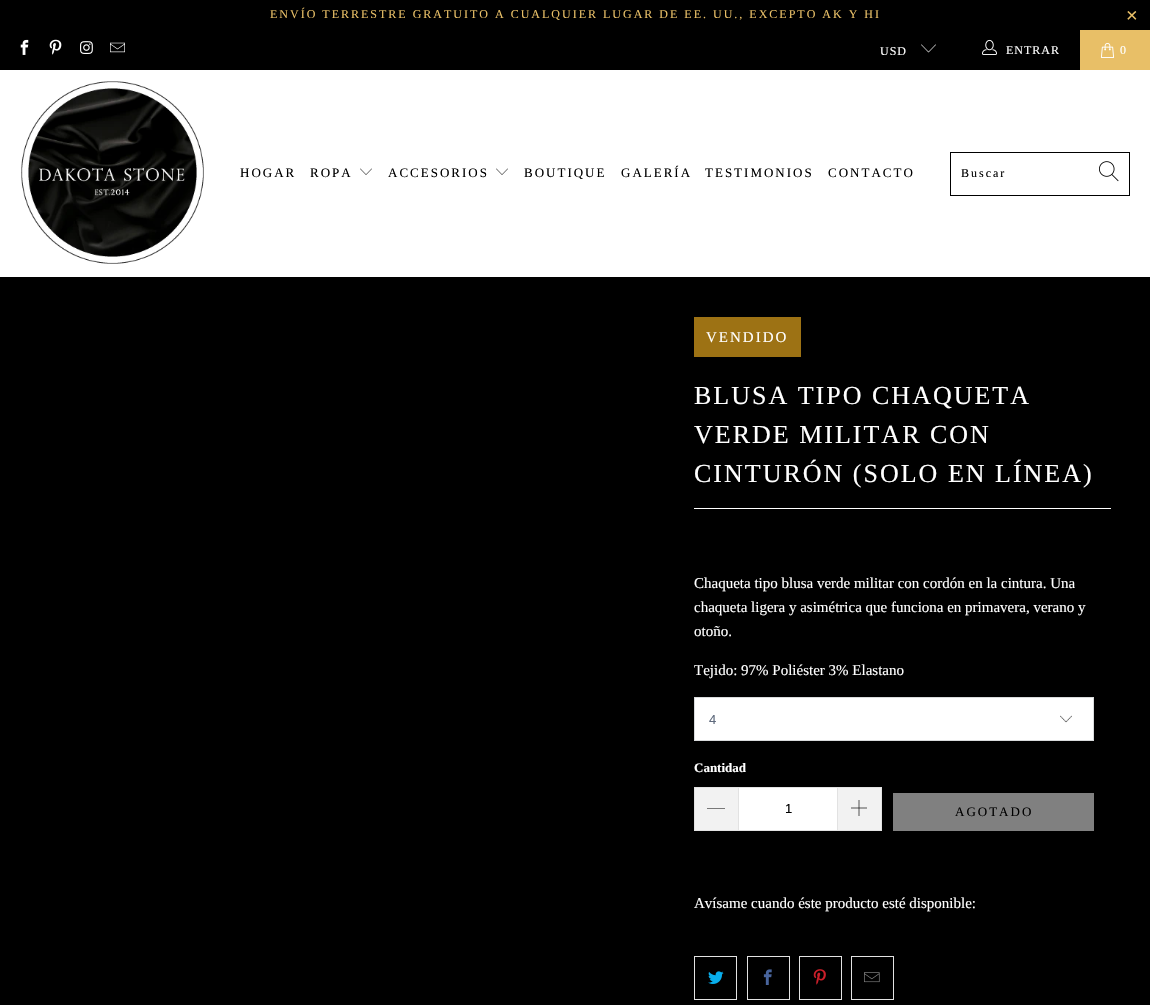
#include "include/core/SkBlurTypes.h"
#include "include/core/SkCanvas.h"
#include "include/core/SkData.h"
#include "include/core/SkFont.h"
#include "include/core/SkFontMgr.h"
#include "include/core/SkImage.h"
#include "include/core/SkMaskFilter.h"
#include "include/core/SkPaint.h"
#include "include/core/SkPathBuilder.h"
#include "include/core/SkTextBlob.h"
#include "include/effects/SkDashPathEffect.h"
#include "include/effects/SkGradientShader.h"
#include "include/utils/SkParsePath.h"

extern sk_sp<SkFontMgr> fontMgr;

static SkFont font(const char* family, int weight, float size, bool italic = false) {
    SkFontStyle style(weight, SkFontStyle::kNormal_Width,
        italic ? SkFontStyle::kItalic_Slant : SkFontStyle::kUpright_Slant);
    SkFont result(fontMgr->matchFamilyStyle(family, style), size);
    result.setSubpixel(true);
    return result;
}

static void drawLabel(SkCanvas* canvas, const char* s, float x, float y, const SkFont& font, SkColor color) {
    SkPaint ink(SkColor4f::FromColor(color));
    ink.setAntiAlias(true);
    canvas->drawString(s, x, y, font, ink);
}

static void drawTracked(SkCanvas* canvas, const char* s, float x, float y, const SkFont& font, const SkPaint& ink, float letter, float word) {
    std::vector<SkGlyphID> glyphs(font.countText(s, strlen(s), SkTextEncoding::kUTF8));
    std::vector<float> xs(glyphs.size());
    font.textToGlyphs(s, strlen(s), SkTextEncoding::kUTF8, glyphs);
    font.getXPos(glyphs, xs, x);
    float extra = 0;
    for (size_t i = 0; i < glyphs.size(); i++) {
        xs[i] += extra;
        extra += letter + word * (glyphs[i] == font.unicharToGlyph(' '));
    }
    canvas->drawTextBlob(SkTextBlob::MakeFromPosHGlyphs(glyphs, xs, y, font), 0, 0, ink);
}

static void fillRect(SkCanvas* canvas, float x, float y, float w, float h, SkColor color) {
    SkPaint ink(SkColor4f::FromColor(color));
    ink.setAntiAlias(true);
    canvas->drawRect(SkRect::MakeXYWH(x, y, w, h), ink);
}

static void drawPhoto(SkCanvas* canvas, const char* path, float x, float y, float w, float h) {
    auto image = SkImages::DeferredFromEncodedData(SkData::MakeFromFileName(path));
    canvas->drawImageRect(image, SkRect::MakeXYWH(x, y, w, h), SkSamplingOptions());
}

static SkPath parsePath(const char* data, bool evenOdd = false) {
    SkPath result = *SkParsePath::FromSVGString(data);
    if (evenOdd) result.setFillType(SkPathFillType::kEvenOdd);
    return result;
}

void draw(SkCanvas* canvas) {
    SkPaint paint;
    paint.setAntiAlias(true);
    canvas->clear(0xFF000000);
    SkFont font1 = font("Liberation Serif", 400, 12);
    paint.setColor(0xFFE8BF67);
    drawTracked(canvas, "ENVÍO TERRESTRE GRATUITO A CUALQUIER LUGAR DE EE. UU., EXCEPTO AK Y HI", 270, 18, font1, paint, 2, 0);
    SkFont font2 = font("Liberation Sans", 400, 20);
    drawTracked(canvas, "×", 1126, 22, font2, paint, 2, 0);
    drawPhoto(canvas, "assets/img1.png", 20, 39, 9, 16);
    drawPhoto(canvas, "assets/img2.png", 49, 39, 13, 16);
    drawPhoto(canvas, "assets/img3.png", 80, 41, 13, 13);
    drawPhoto(canvas, "assets/img4.png", 110, 42, 15, 11);
    paint.setColor(0xFFFFFFFF);
    drawTracked(canvas, "USD", 880, 55, font1, paint, 1, 0);
    drawPhoto(canvas, "assets/img5.png", 921, 44, 15, 9);
    drawPhoto(canvas, "assets/img6.png", 982, 39, 15, 16);
    drawTracked(canvas, "ENTRAR", 1006, 54, font1, paint, 1, 0);
    fillRect(canvas, 1080, 30, 70, 40, 0xFFE8BF67);
    drawPhoto(canvas, "assets/img7.png", 1100, 43, 15, 15);
    drawTracked(canvas, "0", 1120, 54, font1, paint, 1, 0);
    fillRect(canvas, 0, 70, 1150, 207, 0xFFFFFFFF);
    drawPhoto(canvas, "assets/img8.png", 21, 81, 183, 183);
    SkFont font3 = font("Liberation Serif", 400, 13);
    paint.setColor(0xFF000000);
    drawTracked(canvas, "HOGAR", 240, 177, font3, paint, 2, 0);
    drawTracked(canvas, "ROPA", 310, 177, font3, paint, 2, 0);
    drawPhoto(canvas, "assets/img9.png", 360, 168, 12, 7);
    drawTracked(canvas, "ACCESORIOS", 388, 177, font3, paint, 2, 0);
    drawPhoto(canvas, "assets/img9.png", 496, 168, 12, 7);
    drawTracked(canvas, "BOUTIQUE", 524, 177, font3, paint, 2, 0);
    drawTracked(canvas, "GALERÍA", 621, 177, font3, paint, 2, 0);
    drawTracked(canvas, "TESTIMONIOS", 705, 177, font3, paint, 2, 0);
    drawTracked(canvas, "CONTACTO", 828, 177, font3, paint, 2, 0);
    paint.setStroke(true);
    paint.setStrokeWidth(1);
    canvas->drawRect(SkRect::MakeXYWH(950.5f, 152.5f, 179, 43), paint);
    paint.setStroke(false);
    drawTracked(canvas, "Buscar", 961, 177, font1, paint, 2, 0);
    drawPhoto(canvas, "assets/img10.png", 1099, 161, 20, 21);
    fillRect(canvas, 694, 317, 107, 40, 0xFF9D7214);
    SkFont font4 = font("Liberation Serif", 400, 15);
    paint.setColor(0xFFFFFFFF);
    drawTracked(canvas, "VENDIDO", 706, 342, font4, paint, 2, 0);
    SkFont font5 = font("Liberation Serif", 400, 26);
    drawTracked(canvas, "BLUSA TIPO CHAQUETA", 694, 404, font5, paint, 2, 0);
    drawTracked(canvas, "VERDE MILITAR CON", 694, 443, font5, paint, 2, 0);
    drawTracked(canvas, "CINTURÓN (SOLO EN LÍNEA)", 694, 482, font5, paint, 2, 0);
    fillRect(canvas, 694, 508, 417, 1, 0xFFFFFFFF);
    drawLabel(canvas, "Chaqueta tipo blusa verde militar con cordón en la cintura. Una", 694, 588, font4, 0xFFFFFFFF);
    drawLabel(canvas, "chaqueta ligera y asimétrica que funciona en primavera, verano y", 694, 612, font4, 0xFFFFFFFF);
    drawLabel(canvas, "otoño.", 694, 636, font4, 0xFFFFFFFF);
    drawLabel(canvas, "Tejido: 97% Poliéster 3% Elastano", 694, 675, font4, 0xFFFFFFFF);
    fillRect(canvas, 695, 698, 398, 42, 0xFFFFFFFF);
    drawPhoto(canvas, "assets/img11.png", 1060, 715, 12, 8);
    paint.setStroke(true);
    paint.setColor(0xFFD9DBDC);
    canvas->drawRect(SkRect::MakeXYWH(694.5f, 697.5f, 399, 43), paint);
    SkFont font6 = font("Liberation Sans", 400, 13);
    drawLabel(canvas, "4", 709, 724, font6, 0xFF5F6A7D);
    SkFont font7 = font("Liberation Serif", 700, 13);
    drawLabel(canvas, "Cantidad", 694, 772, font7, 0xFFFFFFFF);
    fillRect(canvas, 695, 788, 43, 42, 0xFFF2F2F2);
    fillRect(canvas, 694, 787, 44, 1, 0xFFE2E2E2);
    fillRect(canvas, 694, 830, 44, 1, 0xFFE2E2E2);
    fillRect(canvas, 694, 787, 1, 44, 0xFFE2E2E2);
    paint.setStroke(false);
    paint.setColor(0xFF000000);
    canvas->drawPath(parsePath("M707 808H725V808.5H707Z"), paint);
    paint.setColor(0xFFFFFFFF);
    canvas->drawRect(SkRect::MakeXYWH(738.5f, 787.5f, 99, 43), paint);
    paint.setStroke(true);
    paint.setColor(0xFFE2E2E2);
    canvas->drawRect(SkRect::MakeXYWH(738.5f, 787.5f, 99, 43), paint);
    drawLabel(canvas, "1", 785, 813, font6, 0xFF000000);
    fillRect(canvas, 838, 788, 43, 42, 0xFFF2F2F2);
    fillRect(canvas, 838, 787, 44, 1, 0xFFE2E2E2);
    fillRect(canvas, 881, 787, 1, 44, 0xFFE2E2E2);
    fillRect(canvas, 838, 830, 44, 1, 0xFFE2E2E2);
    drawPhoto(canvas, "assets/img12.png", 851, 800, 16, 16);
    fillRect(canvas, 893, 793, 201, 38, 0xFF808080);
    paint.setStroke(false);
    paint.setColor(0xFF000000);
    drawTracked(canvas, "AGOTADO", 955, 816, font3, paint, 2, 0);
    drawLabel(canvas, "Avísame cuando éste producto esté disponible:", 694, 908, font4, 0xFFFFFFFF);
    paint.setStroke(true);
    paint.setColor(0xFFE2E2E2);
    canvas->drawRect(SkRect::MakeXYWH(694.5f, 956.5f, 42, 43), paint);
    drawPhoto(canvas, "assets/img13.png", 708, 971, 16, 13);
    canvas->drawRect(SkRect::MakeXYWH(747.5f, 956.5f, 42, 43), paint);
    drawPhoto(canvas, "assets/img14.png", 763, 969, 9, 16);
    canvas->drawRect(SkRect::MakeXYWH(799.5f, 956.5f, 42, 43), paint);
    drawPhoto(canvas, "assets/img15.png", 813, 969, 13, 16);
    canvas->drawRect(SkRect::MakeXYWH(851.5f, 956.5f, 42, 43), paint);
    drawPhoto(canvas, "assets/img16.png", 864, 972, 16, 11);
}
